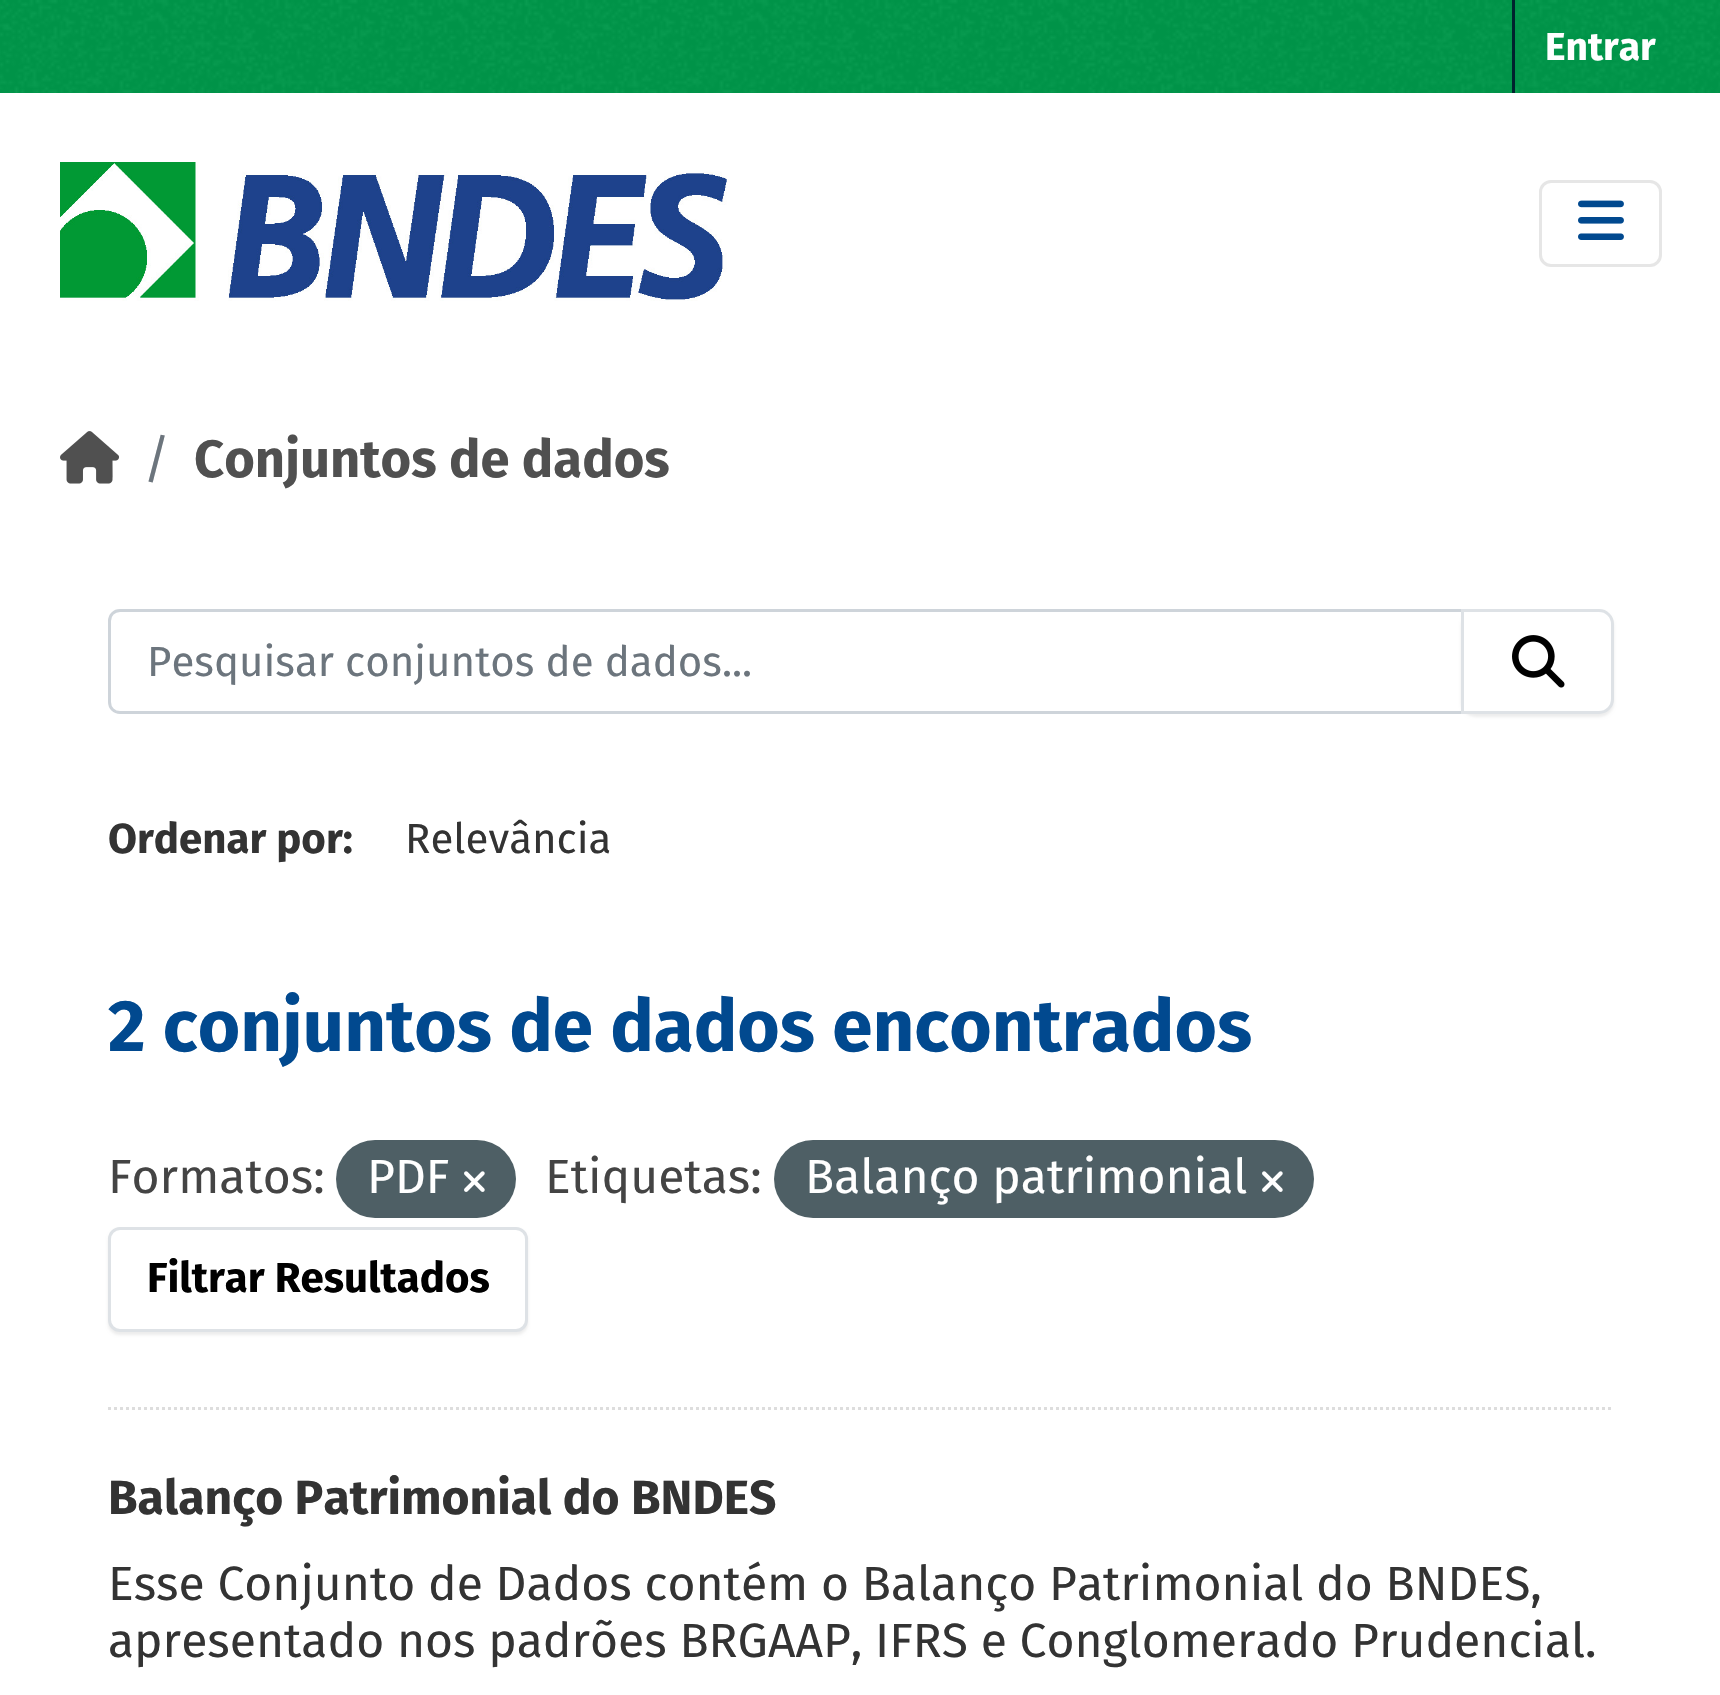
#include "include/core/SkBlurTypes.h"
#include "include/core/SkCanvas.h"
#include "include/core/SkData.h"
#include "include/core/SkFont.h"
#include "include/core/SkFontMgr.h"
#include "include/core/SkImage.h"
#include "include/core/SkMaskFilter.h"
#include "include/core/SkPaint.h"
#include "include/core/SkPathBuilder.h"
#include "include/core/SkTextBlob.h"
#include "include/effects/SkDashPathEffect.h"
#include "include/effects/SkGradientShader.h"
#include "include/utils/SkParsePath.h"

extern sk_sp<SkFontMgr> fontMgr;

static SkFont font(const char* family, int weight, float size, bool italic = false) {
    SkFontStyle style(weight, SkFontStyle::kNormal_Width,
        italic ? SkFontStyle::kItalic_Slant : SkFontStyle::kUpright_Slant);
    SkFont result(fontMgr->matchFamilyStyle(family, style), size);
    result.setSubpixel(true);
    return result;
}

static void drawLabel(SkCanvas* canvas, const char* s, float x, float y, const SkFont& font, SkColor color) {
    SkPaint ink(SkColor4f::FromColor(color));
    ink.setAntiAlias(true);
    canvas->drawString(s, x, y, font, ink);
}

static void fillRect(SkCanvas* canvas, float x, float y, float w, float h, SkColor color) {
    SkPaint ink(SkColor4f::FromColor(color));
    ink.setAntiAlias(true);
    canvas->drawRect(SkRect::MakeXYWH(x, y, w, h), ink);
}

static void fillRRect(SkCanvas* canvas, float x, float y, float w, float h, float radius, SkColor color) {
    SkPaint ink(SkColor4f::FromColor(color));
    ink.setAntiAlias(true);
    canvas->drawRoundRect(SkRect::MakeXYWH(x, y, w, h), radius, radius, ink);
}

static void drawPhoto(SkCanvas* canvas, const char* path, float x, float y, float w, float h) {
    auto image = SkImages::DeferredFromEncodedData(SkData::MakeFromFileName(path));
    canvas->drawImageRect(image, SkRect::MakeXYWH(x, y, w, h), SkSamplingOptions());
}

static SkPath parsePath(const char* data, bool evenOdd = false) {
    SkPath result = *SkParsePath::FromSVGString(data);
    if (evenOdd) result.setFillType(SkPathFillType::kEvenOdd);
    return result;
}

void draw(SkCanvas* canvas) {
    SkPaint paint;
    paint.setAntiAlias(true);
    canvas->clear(0xFFFFFFFF);
    fillRect(canvas, 0, 0, 1720, 93, 0xFF00984A);
    drawPhoto(canvas, "assets/img1.png", 0, 0, 1720, 93);
    fillRect(canvas, 1512, 0, 3, 93, 0xFF00232E);
    SkFont font1 = font("Fira Sans", 700, 39);
    drawLabel(canvas, "Entrar", 1545, 60, font1, 0xFFFFFFFF);
    drawPhoto(canvas, "assets/img2.png", 60, 162, 667, 139);
    paint.setStroke(true);
    paint.setStrokeWidth(3);
    paint.setColor(0xFFE6E6E6);
    canvas->drawRoundRect(SkRect::MakeXYWH(1540.5f, 181.5f, 120, 84), 10.5f, 10.5f, paint);
    drawPhoto(canvas, "assets/img3.png", 1578, 200, 46, 40);
    drawPhoto(canvas, "assets/img4.png", 60, 431, 60, 53);
    SkFont font2 = font("Fira Sans", 400, 52.5f);
    drawLabel(canvas, "/", 143, 477, font2, 0xFF6C757D);
    SkFont font3 = font("Fira Sans", 700, 52.5f);
    drawLabel(canvas, "Conjuntos de dados", 194, 477, font3, 0xFF505050);
    paint.setColor(0xFFDDDDDD);
    paint.setPathEffect(SkDashPathEffect::Make({{3, 3}}, 0));
    canvas->drawPath(parsePath("M108 1408.5H1614"), paint);
    paint.setPathEffect(nullptr);
    paint.setColor(0xFFCED4DA);
    canvas->drawPath(parsePath("M120 610.5H1462.5V712.5H120C114 712.5 109.5 708 109.5 702V621C109.5 615 114 610.5 120 610.5Z"), paint);
    SkFont font4 = font("Fira Sans", 400, 42);
    drawLabel(canvas, "Pesquisar conjuntos de dados...", 147, 676, font4, 0xFF6C757D);
    paint.setStroke(false);
    paint.setColor(0x12000000);
    paint.setMaskFilter(SkMaskFilter::MakeBlur(kNormal_SkBlurStyle, 1.5f));
    canvas->drawRoundRect(SkRect::MakeXYWH(1461, 612, 153, 105), 15, 15, paint);
    paint.setMaskFilter(nullptr);
    paint.setColor(0xFFFFFFFF);
    canvas->drawPath(parsePath("M1462.5 610.5H1599C1606.5 610.5 1612.5 616.5 1612.5 624V699C1612.5 706.5 1606.5 712.5 1599 712.5H1462.5Z"), paint);
    paint.setStroke(true);
    paint.setColor(0xFFDEE2E6);
    canvas->drawPath(parsePath("M1462.5 610.5H1599C1606.5 610.5 1612.5 616.5 1612.5 624V699C1612.5 706.5 1606.5 712.5 1599 712.5H1462.5Z"), paint);
    drawPhoto(canvas, "assets/img5.png", 1512, 635, 53, 53);
    SkFont font5 = font("Fira Sans", 700, 42);
    drawLabel(canvas, "Ordenar por:", 108, 853, font5, 0xFF333333);
    drawLabel(canvas, "Relevância", 405, 853, font4, 0xFF333333);
    SkFont font6 = font("Fira Sans", 700, 72.75f);
    drawLabel(canvas, "2 conjuntos de dados encontrados", 108, 1051, font6, 0xFF01498F);
    SkFont font7 = font("Fira Sans", 400, 48);
    drawLabel(canvas, "Formatos:", 108, 1193, font7, 0xFF444444);
    fillRRect(canvas, 336, 1140, 180, 78, 39, 0xFF4E5F65);
    drawLabel(canvas, "PDF", 367, 1193, font7, 0xFFFFFFFF);
    drawPhoto(canvas, "assets/img6.png", 464, 1171, 21, 21);
    drawLabel(canvas, "Etiquetas:", 545, 1193, font7, 0xFF444444);
    fillRRect(canvas, 774, 1140, 540, 78, 39, 0xFF4E5F65);
    drawLabel(canvas, "Balanço patrimonial", 805, 1193, font7, 0xFFFFFFFF);
    drawPhoto(canvas, "assets/img6.png", 1262, 1171, 21, 21);
    paint.setStroke(false);
    paint.setColor(0x12000000);
    paint.setMaskFilter(SkMaskFilter::MakeBlur(kNormal_SkBlurStyle, 1.5f));
    canvas->drawRoundRect(SkRect::MakeXYWH(108, 1230, 420, 105), 12, 12, paint);
    paint.setMaskFilter(nullptr);
    paint.setColor(0xFFFFFFFF);
    canvas->drawRoundRect(SkRect::MakeXYWH(109.5f, 1228.5f, 417, 102), 10.5f, 10.5f, paint);
    paint.setStroke(true);
    paint.setColor(0xFFDEE2E6);
    canvas->drawRoundRect(SkRect::MakeXYWH(109.5f, 1228.5f, 417, 102), 10.5f, 10.5f, paint);
    drawLabel(canvas, "Filtrar Resultados", 147, 1292, font5, 0xFF000000);
    SkFont font8 = font("Fira Sans", 700, 48);
    drawLabel(canvas, "Balanço Patrimonial do BNDES", 108, 1514, font8, 0xFF333333);
    drawLabel(canvas, "Esse Conjunto de Dados contém o Balanço Patrimonial do BNDES,", 108, 1600, font7, 0xFF333333);
    drawLabel(canvas, "apresentado nos padrões BRGAAP, IFRS e Conglomerado Prudencial.", 108, 1657, font7, 0xFF333333);
}
